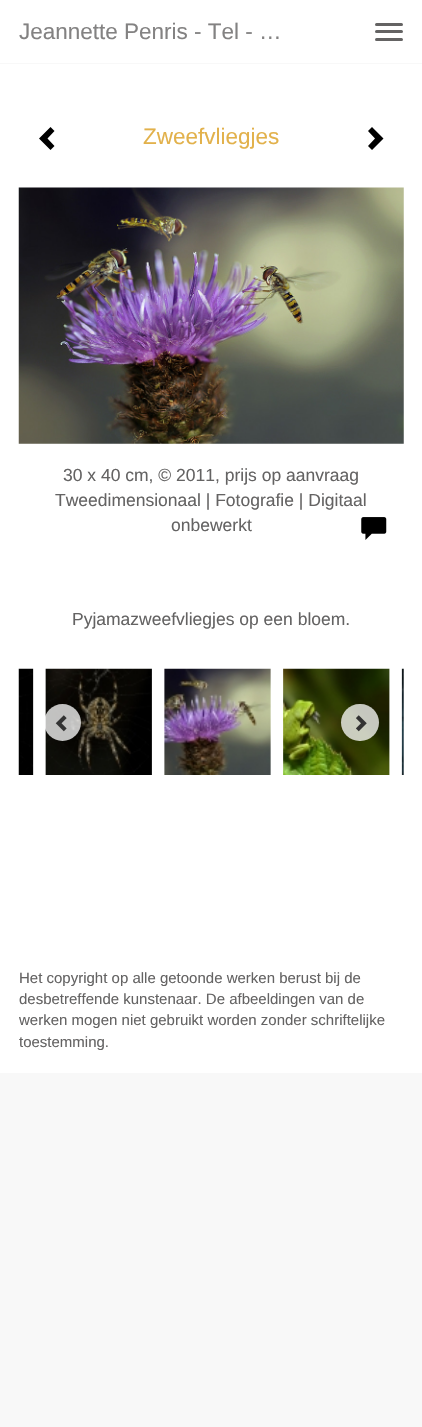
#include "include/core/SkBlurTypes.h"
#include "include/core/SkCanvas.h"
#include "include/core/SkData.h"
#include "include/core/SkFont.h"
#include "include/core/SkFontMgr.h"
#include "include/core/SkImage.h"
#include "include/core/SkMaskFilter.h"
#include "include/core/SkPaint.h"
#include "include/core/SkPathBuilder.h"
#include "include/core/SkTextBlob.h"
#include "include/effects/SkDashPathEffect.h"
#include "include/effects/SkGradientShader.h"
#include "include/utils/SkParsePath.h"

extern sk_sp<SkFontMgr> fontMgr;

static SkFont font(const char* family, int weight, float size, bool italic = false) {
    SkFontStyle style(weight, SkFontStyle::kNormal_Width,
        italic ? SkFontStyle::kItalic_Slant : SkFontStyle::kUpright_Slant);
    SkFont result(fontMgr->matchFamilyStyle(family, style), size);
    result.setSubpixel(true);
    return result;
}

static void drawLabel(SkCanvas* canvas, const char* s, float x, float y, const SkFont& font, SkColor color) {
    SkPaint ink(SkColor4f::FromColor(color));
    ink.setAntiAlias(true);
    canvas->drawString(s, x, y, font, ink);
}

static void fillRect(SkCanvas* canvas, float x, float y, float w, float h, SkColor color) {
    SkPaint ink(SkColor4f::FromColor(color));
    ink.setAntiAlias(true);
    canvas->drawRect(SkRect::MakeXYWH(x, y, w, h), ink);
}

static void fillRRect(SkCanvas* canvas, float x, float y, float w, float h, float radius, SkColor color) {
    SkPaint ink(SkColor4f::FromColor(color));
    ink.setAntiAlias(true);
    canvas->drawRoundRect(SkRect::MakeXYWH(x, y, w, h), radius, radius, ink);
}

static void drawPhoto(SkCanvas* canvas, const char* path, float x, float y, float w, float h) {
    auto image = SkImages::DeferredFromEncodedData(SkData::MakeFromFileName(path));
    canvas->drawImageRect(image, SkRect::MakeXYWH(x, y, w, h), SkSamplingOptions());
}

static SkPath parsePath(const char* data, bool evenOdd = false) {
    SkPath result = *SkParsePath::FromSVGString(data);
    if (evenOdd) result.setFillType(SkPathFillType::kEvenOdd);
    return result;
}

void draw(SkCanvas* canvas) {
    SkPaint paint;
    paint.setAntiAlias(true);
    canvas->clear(0xFFF8F8F8);
    fillRect(canvas, 0, 0, 422, 1073, 0xFFFFFFFF);
    fillRect(canvas, 0, 63, 422, 1, 0xFFF8F8F8);
    SkFont font1 = font("Liberation Sans", 400, 22.5f);
    drawLabel(canvas, "Jeannette Penris - Tel - …", 19, 39, font1, 0xFF838282);
    fillRRect(canvas, 375, 23, 28, 3, 1.5f, 0xFF646363);
    fillRRect(canvas, 375, 30, 28, 3, 1.5f, 0xFF646363);
    fillRRect(canvas, 375, 38, 28, 3, 1.5f, 0xFF646363);
    paint.setColor(0xFF000000);
    canvas->drawPath(parsePath("M54.5 131L47.5 138.5L54.5 146L50.5 150L39 138.5L50.5 127Z"), paint);
    drawLabel(canvas, "Zweefvliegjes", 143, 144, font1, 0xFFE2B14B);
    canvas->drawPath(parsePath("M383.5 138.5L372 150L368 146L375 138.5L368 131L372 127Z"), paint);
    drawPhoto(canvas, "assets/img1.png", 18, 187, 386, 257);
    SkFont font2 = font("Liberation Sans", 400, 17.5f);
    drawLabel(canvas, "30 x 40 cm, © 2011, prijs op aanvraag", 63, 481, font2, 0xFF646363);
    drawLabel(canvas, "Tweedimensionaal | Fotografie | Digitaal", 55, 506, font2, 0xFF646363);
    drawLabel(canvas, "onbewerkt", 171, 531, font2, 0xFF646363);
    drawPhoto(canvas, "assets/img2.png", 361, 517, 26, 23);
    drawLabel(canvas, "Pyjamazweefvliegjes op een bloem.", 72, 625, font2, 0xFF646363);
    drawPhoto(canvas, "assets/img3.png", 18, 668, 16, 107);
    drawPhoto(canvas, "assets/img4.png", 45, 668, 107, 107);
    drawPhoto(canvas, "assets/img5.png", 164, 668, 107, 107);
    drawPhoto(canvas, "assets/img6.png", 283, 668, 107, 107);
    drawPhoto(canvas, "assets/img7.png", 401, 668, 3, 107);
    paint.setColor(0xBFFFFFFF);
    canvas->drawCircle(62.5f, 722.5f, 18.5f, paint);
    drawPhoto(canvas, "assets/img8.png", 55, 715, 12, 17);
    fillRRect(canvas, 341, 704, 38, 37, 18.5f, 0xBFFFFFFF);
    drawPhoto(canvas, "assets/img9.png", 356, 715, 11, 17);
    SkFont font3 = font("Liberation Sans", 400, 15);
    drawLabel(canvas, "Het copyright op alle getoonde werken berust bij de", 19, 983, font3, 0xFF646363);
    drawLabel(canvas, "desbetreffende kunstenaar. De afbeeldingen van de", 19, 1004, font3, 0xFF646363);
    drawLabel(canvas, "werken mogen niet gebruikt worden zonder schriftelijke", 19, 1025, font3, 0xFF646363);
    drawLabel(canvas, "toestemming.", 19, 1047, font3, 0xFF646363);
}
